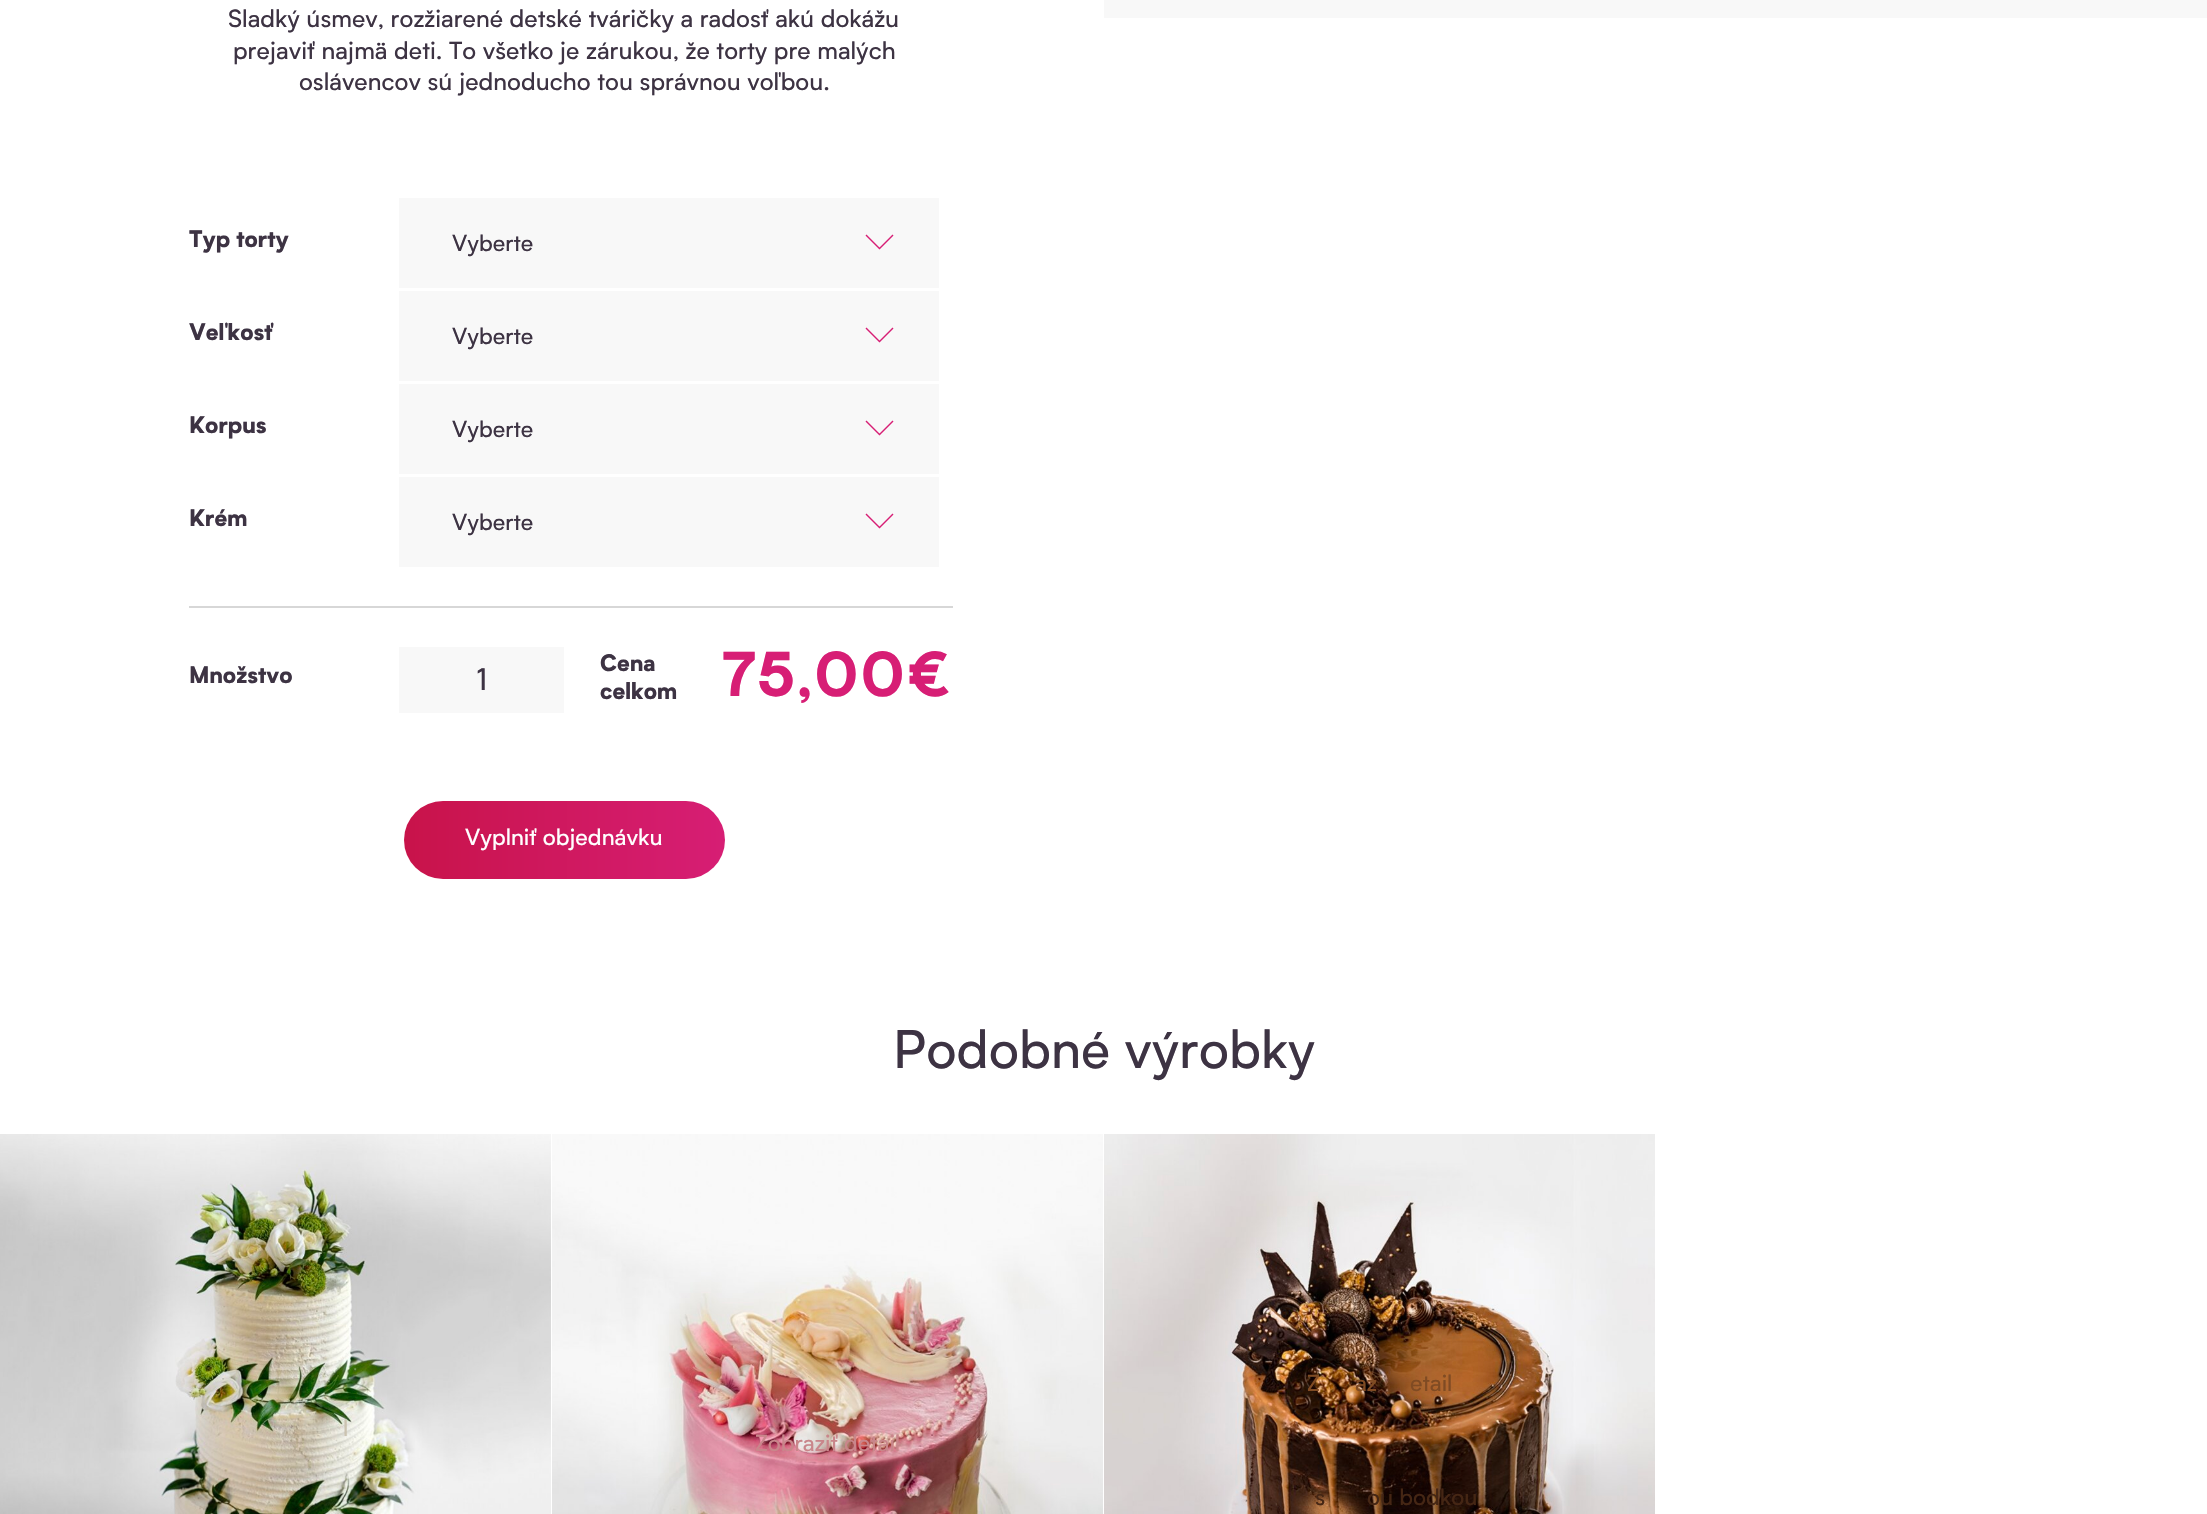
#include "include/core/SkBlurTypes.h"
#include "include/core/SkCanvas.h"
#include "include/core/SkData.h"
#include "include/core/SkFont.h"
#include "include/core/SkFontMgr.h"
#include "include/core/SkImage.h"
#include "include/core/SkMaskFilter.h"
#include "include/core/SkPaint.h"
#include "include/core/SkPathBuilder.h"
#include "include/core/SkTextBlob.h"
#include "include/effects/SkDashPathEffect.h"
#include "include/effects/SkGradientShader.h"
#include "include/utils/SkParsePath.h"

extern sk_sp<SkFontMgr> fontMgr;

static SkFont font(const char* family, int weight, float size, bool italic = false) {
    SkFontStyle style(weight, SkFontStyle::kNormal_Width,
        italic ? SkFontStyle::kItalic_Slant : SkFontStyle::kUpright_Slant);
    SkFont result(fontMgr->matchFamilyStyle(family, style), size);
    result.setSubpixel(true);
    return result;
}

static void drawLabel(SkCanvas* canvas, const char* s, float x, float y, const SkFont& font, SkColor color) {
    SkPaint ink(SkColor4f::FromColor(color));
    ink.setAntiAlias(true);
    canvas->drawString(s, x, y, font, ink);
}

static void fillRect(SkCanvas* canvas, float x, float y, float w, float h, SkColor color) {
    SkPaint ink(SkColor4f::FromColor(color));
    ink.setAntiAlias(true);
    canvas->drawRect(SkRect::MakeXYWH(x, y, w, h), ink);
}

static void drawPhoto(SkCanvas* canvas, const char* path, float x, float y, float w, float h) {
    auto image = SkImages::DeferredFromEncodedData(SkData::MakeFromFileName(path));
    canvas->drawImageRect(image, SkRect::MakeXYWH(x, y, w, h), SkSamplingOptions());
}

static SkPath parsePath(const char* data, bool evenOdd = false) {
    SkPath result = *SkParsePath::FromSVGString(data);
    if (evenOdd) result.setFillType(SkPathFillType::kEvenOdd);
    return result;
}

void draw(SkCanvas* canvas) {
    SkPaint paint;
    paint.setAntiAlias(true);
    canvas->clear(0xFFFFFFFF);
    SkFont font1 = font("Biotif", 400, 24);
    drawLabel(canvas, "Sladký úsmev, rozžiarené detské tváričky a radosť akú dokážu", 228, 27, font1, 0xFF3D3343);
    drawLabel(canvas, "prejaviť najmä deti. To všetko je zárukou, že torty pre malých", 233, 59, font1, 0xFF3D3343);
    drawLabel(canvas, "oslávencov sú jednoducho tou správnou voľbou.", 299, 90, font1, 0xFF3D3343);
    SkFont font2 = font("Biotif", 900, 22.5f);
    drawLabel(canvas, "Typ torty", 189, 247, font2, 0xFF3D3343);
    fillRect(canvas, 399, 198, 540, 90, 0xFFF8F8F8);
    SkFont font3 = font("Biotif", 400, 22.5f);
    drawLabel(canvas, "Vyberte", 452, 251, font3, 0xFF3D3343);
    paint.setColor(0xFFD71E75);
    canvas->drawPath(parsePath("M865.5 235.5L866.5 234.5L879.5 247.5L892.5 234.5L893.5 235.5L879.5 249.5Z"), paint);
    drawLabel(canvas, "Veľkosť", 189, 340, font2, 0xFF3D3343);
    fillRect(canvas, 399, 291, 540, 90, 0xFFF8F8F8);
    drawLabel(canvas, "Vyberte", 452, 344, font3, 0xFF3D3343);
    canvas->drawPath(parsePath("M865.5 328.5L866.5 327.5L879.5 340.5L892.5 327.5L893.5 328.5L879.5 342.5Z"), paint);
    drawLabel(canvas, "Korpus", 189, 433, font2, 0xFF3D3343);
    fillRect(canvas, 399, 384, 540, 90, 0xFFF8F8F8);
    drawLabel(canvas, "Vyberte", 452, 437, font3, 0xFF3D3343);
    canvas->drawPath(parsePath("M865.5 421.5L866.5 420.5L879.5 433.5L892.5 420.5L893.5 421.5L879.5 435.5Z"), paint);
    drawLabel(canvas, "Krém", 189, 526, font2, 0xFF3D3343);
    fillRect(canvas, 399, 477, 540, 90, 0xFFF8F8F8);
    drawLabel(canvas, "Vyberte", 452, 530, font3, 0xFF3D3343);
    canvas->drawPath(parsePath("M865.5 514.5L866.5 513.5L879.5 526.5L892.5 513.5L893.5 514.5L879.5 528.5Z"), paint);
    fillRect(canvas, 189, 606, 764, 2, 0xFFD7D7D7);
    drawLabel(canvas, "Množstvo", 189, 683, font2, 0xFF3D3343);
    fillRect(canvas, 399, 647, 165, 66, 0xFFF8F8F8);
    SkFont font4 = font("Biotif", 400, 30);
    drawLabel(canvas, "1", 476, 690, font4, 0xFF3D3343);
    drawLabel(canvas, "Cena", 600, 671, font2, 0xFF3D3343);
    drawLabel(canvas, "celkom", 600, 699, font2, 0xFF3D3343);
    SkFont font5 = font("Biotif", 800, 60);
    drawLabel(canvas, "75,00€", 722, 696, font5, 0xFFD71E75);
    {
        const SkColor colors[] = {0xFFC8134A, 0xFFD71E75, 0xFF48C318, 0xFF87FA26};
        const float stops[] = {0, 0.34f, 0.66f, 1};
        const SkPoint ends[] = {{404, 840}, {1364, 840}};
        paint.setShader(SkGradientShader::MakeLinear(ends, colors, stops, 4, SkTileMode::kClamp));
        paint.setAlpha(255);
    }
    canvas->drawRoundRect(SkRect::MakeXYWH(404, 801, 321, 78), 39, 39, paint);
    drawLabel(canvas, "Vyplniť objednávku", 465, 845, font3, 0xFFFFFFFF);
    fillRect(canvas, 1104, 0, 1103, 18, 0xFFF8F8F8);
    SkFont font6 = font("Biotif", 400, 52.5f);
    drawLabel(canvas, "Podobné výrobky", 893, 1068, font6, 0xFF3D3343);
    drawPhoto(canvas, "assets/img1.png", 0, 1134, 551, 380);
    drawLabel(canvas, "l", 343, 1436, font3, 0xFFCBC3B0);
    drawPhoto(canvas, "assets/img2.png", 1104, 1134, 551, 380);
    drawLabel(canvas, "Z", 1307, 1391, font3, 0xFF804B23);
    drawLabel(canvas, "az", 1355, 1391, font3, 0xFF804B23);
    drawLabel(canvas, "etail", 1410, 1391, font3, 0xFF804B23);
    drawLabel(canvas, "s", 1315, 1505, font3, 0xFF452614);
    drawLabel(canvas, "ou bodkou", 1367, 1505, font3, 0xFF452614);
    drawPhoto(canvas, "assets/img3.png", 552, 1134, 551, 380);
    drawLabel(canvas, "Zobraziť detail", 755, 1451, font3, 0xFFC9868B);
}
